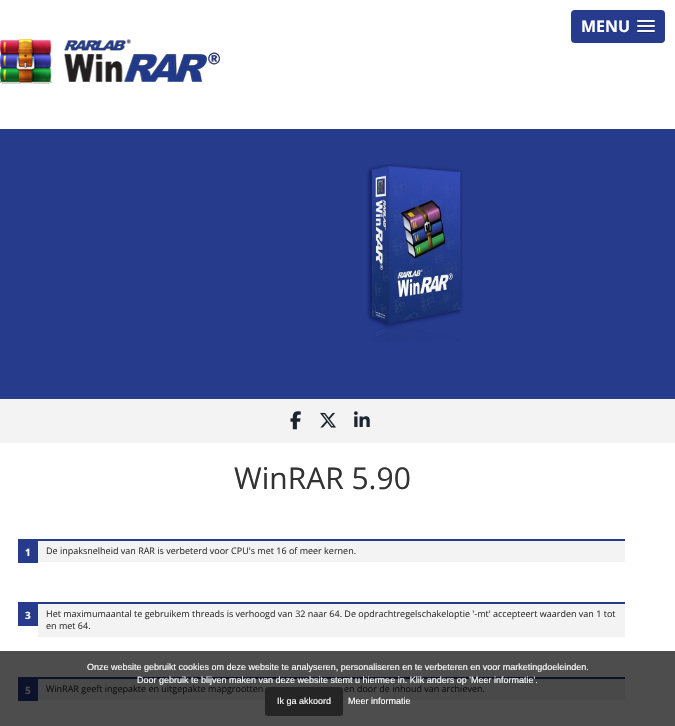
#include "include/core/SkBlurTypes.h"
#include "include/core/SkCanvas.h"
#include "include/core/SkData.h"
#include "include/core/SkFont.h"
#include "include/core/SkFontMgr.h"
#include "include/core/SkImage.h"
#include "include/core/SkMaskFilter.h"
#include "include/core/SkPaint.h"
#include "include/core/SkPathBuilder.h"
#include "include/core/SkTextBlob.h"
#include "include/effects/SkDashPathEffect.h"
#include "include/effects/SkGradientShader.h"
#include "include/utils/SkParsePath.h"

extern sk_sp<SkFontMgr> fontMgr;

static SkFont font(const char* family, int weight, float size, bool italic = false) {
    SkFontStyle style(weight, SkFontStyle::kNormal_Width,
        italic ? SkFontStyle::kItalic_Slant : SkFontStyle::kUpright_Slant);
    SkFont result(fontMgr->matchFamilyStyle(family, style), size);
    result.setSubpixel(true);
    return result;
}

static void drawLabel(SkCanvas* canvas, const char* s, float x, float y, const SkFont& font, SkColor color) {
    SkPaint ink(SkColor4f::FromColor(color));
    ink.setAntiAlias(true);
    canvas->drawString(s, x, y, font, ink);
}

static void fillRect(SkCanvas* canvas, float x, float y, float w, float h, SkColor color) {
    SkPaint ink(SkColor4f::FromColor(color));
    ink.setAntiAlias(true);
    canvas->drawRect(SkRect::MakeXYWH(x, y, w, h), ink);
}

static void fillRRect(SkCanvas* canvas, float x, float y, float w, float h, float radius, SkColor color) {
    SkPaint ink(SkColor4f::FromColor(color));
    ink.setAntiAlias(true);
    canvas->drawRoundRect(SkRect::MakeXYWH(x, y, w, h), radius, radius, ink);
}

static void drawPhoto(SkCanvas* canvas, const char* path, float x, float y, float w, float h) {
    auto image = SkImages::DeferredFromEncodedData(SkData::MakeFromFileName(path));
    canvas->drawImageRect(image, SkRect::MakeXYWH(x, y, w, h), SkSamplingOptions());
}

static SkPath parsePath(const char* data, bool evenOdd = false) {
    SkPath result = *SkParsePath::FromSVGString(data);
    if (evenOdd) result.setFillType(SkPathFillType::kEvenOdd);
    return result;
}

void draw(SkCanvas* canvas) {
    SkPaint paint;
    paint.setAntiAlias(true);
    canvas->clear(0xFFFFFFFF);
    fillRect(canvas, 0, 651, 675, 75, 0xFF4D4D4D);
    fillRRect(canvas, 571, 10, 94, 33, 4, 0xFF263B8C);
    SkFont font1 = font("Open Sans", 700, 16);
    drawLabel(canvas, "MENU", 581, 32, font1, 0xFFFFFFFF);
    paint.setColor(0xFF1D2C69);
    canvas->drawPath(parsePath("M637 21.5C636 23.5 640.5 23 640.5 23H651.5C651.5 23 656 23.5 655 21.5C654 22.5 647.5 22 646 22C644.5 22 638 22.5 637 21.5Z"), paint);
    fillRRect(canvas, 637, 20, 18, 2, 1, 0xFFF5F5F5);
    canvas->drawPath(parsePath("M637 26.5C636 28.5 640.5 28 640.5 28H651.5C651.5 28 656 28.5 655 26.5C654 27.5 647.5 27 646 27C644.5 27 638 27.5 637 26.5Z"), paint);
    fillRRect(canvas, 637, 25, 18, 2, 1, 0xFFF5F5F5);
    canvas->drawPath(parsePath("M637 31.5C636 33.5 640.5 33 640.5 33H651.5C651.5 33 656 33.5 655 31.5C654 32.5 647.5 32 646 32C644.5 32 638 32.5 637 31.5Z"), paint);
    fillRRect(canvas, 637, 30, 18, 2, 1, 0xFFF5F5F5);
    drawPhoto(canvas, "assets/img1.png", 0, 39, 220, 45);
    fillRect(canvas, 0, 129, 675, 270, 0xFF263B8C);
    drawPhoto(canvas, "assets/img2.png", 366, 164, 97, 178);
    fillRect(canvas, 0, 399, 675, 44, 0xFFF3F3F3);
    drawPhoto(canvas, "assets/img3.png", 290, 411, 11, 19);
    drawPhoto(canvas, "assets/img4.png", 320, 412, 16, 16);
    drawPhoto(canvas, "assets/img5.png", 354, 411, 16, 16);
    SkFont font2 = font("Open Sans", 400, 30);
    drawLabel(canvas, "WinRAR 5.90", 234, 489, font2, 0xFF333333);
    fillRect(canvas, 38, 541, 587, 21, 0xFFF3F3F3);
    fillRect(canvas, 38, 539, 587, 2, 0xFF263B8C);
    fillRect(canvas, 18, 539, 20, 24, 0xFF263B8C);
    SkFont font3 = font("Open Sans", 700, 10);
    drawLabel(canvas, "1", 25, 556, font3, 0xFFFFFFFF);
    SkFont font4 = font("Open Sans", 400, 9);
    drawLabel(canvas, "De inpaksnelheid van RAR is verbeterd voor CPU's met 16 of meer kernen.", 46, 554, font4, 0xFF333333);
    fillRect(canvas, 38, 604, 587, 33, 0xFFF3F3F3);
    fillRect(canvas, 38, 602, 587, 2, 0xFF263B8C);
    fillRect(canvas, 18, 602, 20, 24, 0xFF263B8C);
    drawLabel(canvas, "3", 25, 619, font3, 0xFFFFFFFF);
    drawLabel(canvas, "Het maximumaantal te gebruikem threads is verhoogd van 32 naar 64. De opdrachtregelschakeloptie '-mt' accepteert waarden van 1 tot", 46, 617, font4, 0xFF333333);
    drawLabel(canvas, "en met 64.", 46, 629, font4, 0xFF333333);
    fillRect(canvas, 38, 679, 587, 21, 0xFF494949);
    fillRect(canvas, 38, 677, 587, 2, 0xFF0B122A);
    fillRect(canvas, 18, 677, 20, 24, 0xFF0B122A);
    drawLabel(canvas, "5", 25, 694, font3, 0xFF4D4D4D);
    drawLabel(canvas, "WinRAR geeft ingepakte en uitgepakte mapgrootten", 46, 692, font4, 0xFF0F0F0F);
    drawLabel(canvas, "en door de inhoud van archieven.", 344, 692, font4, 0xFF0F0F0F);
    SkFont font5 = font("Liberation Sans", 400, 9);
    drawLabel(canvas, "Onze website gebruikt cookies om deze website te analyseren, personaliseren en te verbeteren en voor marketingdoeleinden.", 87, 670, font5, 0xFFFFFFFF);
    drawLabel(canvas, "Door gebruik te blijven maken van deze website stemt u hiermee in. Klik anders op 'Meer informatie'.", 137, 683, font5, 0xFFFFFFFF);
    fillRRect(canvas, 265, 687, 78, 29, 3, 0xFF252525);
    drawLabel(canvas, "Ik ga akkoord", 277, 704, font5, 0xFFFFFFFF);
    drawLabel(canvas, "Meer informatie", 348, 704, font5, 0xFFFFFFFF);
}
